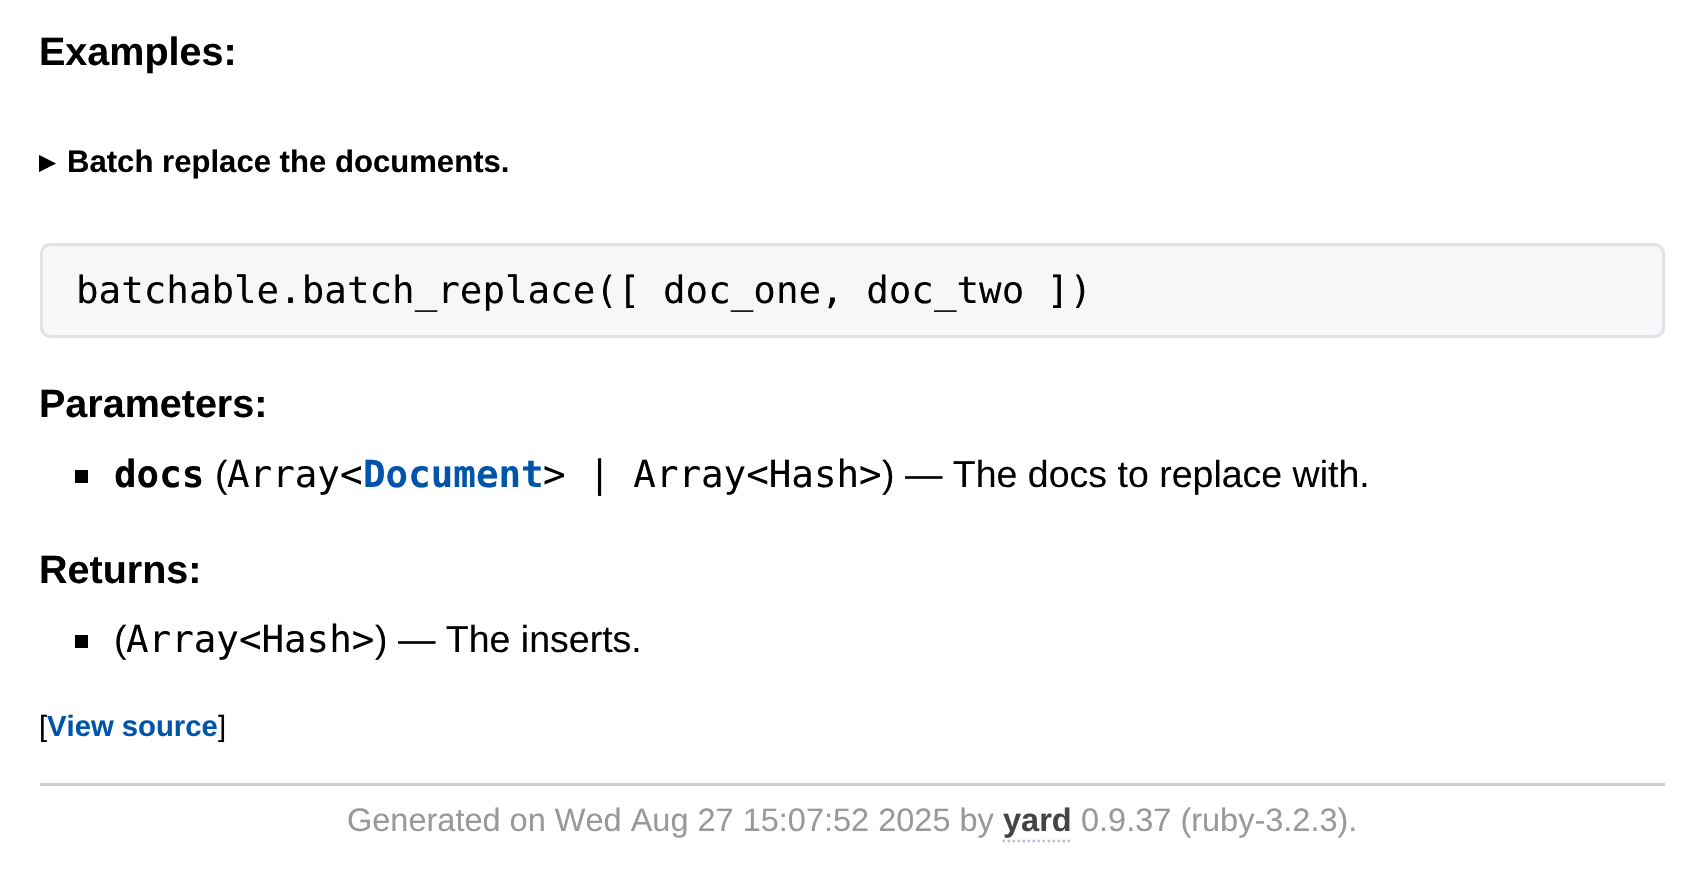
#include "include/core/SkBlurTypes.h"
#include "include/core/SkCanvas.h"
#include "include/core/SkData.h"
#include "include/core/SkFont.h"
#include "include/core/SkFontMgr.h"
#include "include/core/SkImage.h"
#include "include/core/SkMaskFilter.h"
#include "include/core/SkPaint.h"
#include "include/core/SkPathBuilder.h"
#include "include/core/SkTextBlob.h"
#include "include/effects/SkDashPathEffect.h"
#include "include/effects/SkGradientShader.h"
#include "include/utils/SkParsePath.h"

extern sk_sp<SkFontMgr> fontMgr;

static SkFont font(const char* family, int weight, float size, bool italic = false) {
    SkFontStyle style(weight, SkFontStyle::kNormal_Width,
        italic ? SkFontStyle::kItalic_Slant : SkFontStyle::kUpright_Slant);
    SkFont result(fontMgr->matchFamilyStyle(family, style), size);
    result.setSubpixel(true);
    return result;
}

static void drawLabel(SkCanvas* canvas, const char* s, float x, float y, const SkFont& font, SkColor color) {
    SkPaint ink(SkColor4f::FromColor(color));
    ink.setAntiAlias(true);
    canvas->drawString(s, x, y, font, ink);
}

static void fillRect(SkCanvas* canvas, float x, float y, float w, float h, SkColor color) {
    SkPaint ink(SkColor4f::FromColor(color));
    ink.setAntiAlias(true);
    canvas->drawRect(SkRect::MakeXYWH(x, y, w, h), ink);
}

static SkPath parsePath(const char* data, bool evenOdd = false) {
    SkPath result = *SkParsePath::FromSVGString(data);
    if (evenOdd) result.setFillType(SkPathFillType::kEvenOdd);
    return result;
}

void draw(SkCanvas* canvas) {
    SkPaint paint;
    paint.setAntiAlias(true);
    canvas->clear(0xFFFFFFFF);
    SkFont font1 = font("Liberation Sans", 700, 39.5f);
    drawLabel(canvas, "Examples:", 39, 65, font1, 0xFF000000);
    SkFont font2 = font("DejaVu Sans", 700, 31.1f);
    drawLabel(canvas, "▸", 39, 172, font2, 0xFF000000);
    SkFont font3 = font("Liberation Sans", 700, 31.1f);
    drawLabel(canvas, "Batch replace the documents.", 67, 172, font3, 0xFF000000);
    paint.setColor(0xFFF7F7F9);
    canvas->drawRoundRect(SkRect::MakeXYWH(41.5f, 244.5f, 1622, 92), 8.5f, 8.5f, paint);
    paint.setStroke(true);
    paint.setStrokeWidth(3);
    paint.setColor(0xFFE1E1E8);
    canvas->drawRoundRect(SkRect::MakeXYWH(41.5f, 244.5f, 1622, 92), 8.5f, 8.5f, paint);
    SkFont font4 = font("DejaVu Sans Mono", 400, 37.5f);
    drawLabel(canvas, "batchable.batch_replace([ doc_one, doc_two ])", 76, 303, font4, 0xFF000000);
    drawLabel(canvas, "Parameters:", 39, 417, font1, 0xFF000000);
    fillRect(canvas, 75, 470, 13, 13, 0xFF000000);
    SkFont font5 = font("DejaVu Sans Mono", 700, 37.5f);
    drawLabel(canvas, "docs", 114, 487, font5, 0xFF000000);
    SkFont font6 = font("Liberation Sans", 400, 37.5f);
    drawLabel(canvas, "(", 215, 487, font6, 0xFF000000);
    drawLabel(canvas, "Array<", 227, 487, font4, 0xFF000000);
    drawLabel(canvas, "Document", 363, 487, font5, 0xFF0055AA);
    drawLabel(canvas, "> | Array<Hash>", 543, 487, font4, 0xFF000000);
    drawLabel(canvas, ") — The docs to replace with.", 882, 487, font6, 0xFF000000);
    drawLabel(canvas, "Returns:", 39, 583, font1, 0xFF000000);
    fillRect(canvas, 75, 635, 13, 13, 0xFF000000);
    drawLabel(canvas, "(", 114, 652, font6, 0xFF000000);
    drawLabel(canvas, "Array<Hash>", 126, 652, font4, 0xFF000000);
    drawLabel(canvas, ") — The inserts.", 375, 652, font6, 0xFF000000);
    SkFont font7 = font("Liberation Sans", 400, 29.25f);
    drawLabel(canvas, "[", 39, 736, font7, 0xFF000000);
    SkFont font8 = font("Liberation Sans", 700, 29.25f);
    drawLabel(canvas, "View source", 47, 736, font8, 0xFF0055AA);
    drawLabel(canvas, "]", 218, 736, font7, 0xFF000000);
    fillRect(canvas, 40, 783, 1625, 3, 0xFFCCCCCC);
    SkFont font9 = font("Liberation Sans", 400, 32.5f);
    drawLabel(canvas, "Generated on Wed Aug 27 15:07:52 2025 by", 347, 831, font9, 0xFF999999);
    SkFont font10 = font("Liberation Sans", 700, 32.5f);
    drawLabel(canvas, "yard", 1003, 831, font10, 0xFF444444);
    paint.setStrokeWidth(2.5f);
    paint.setColor(0xFFBBBBDD);
    paint.setPathEffect(SkDashPathEffect::Make({{2.5f, 2.5f}}, 0));
    canvas->drawPath(parsePath("M1002.5 841H1072.5"), paint);
    paint.setPathEffect(nullptr);
    drawLabel(canvas, "0.9.37 (ruby-3.2.3).", 1081, 831, font9, 0xFF999999);
}
